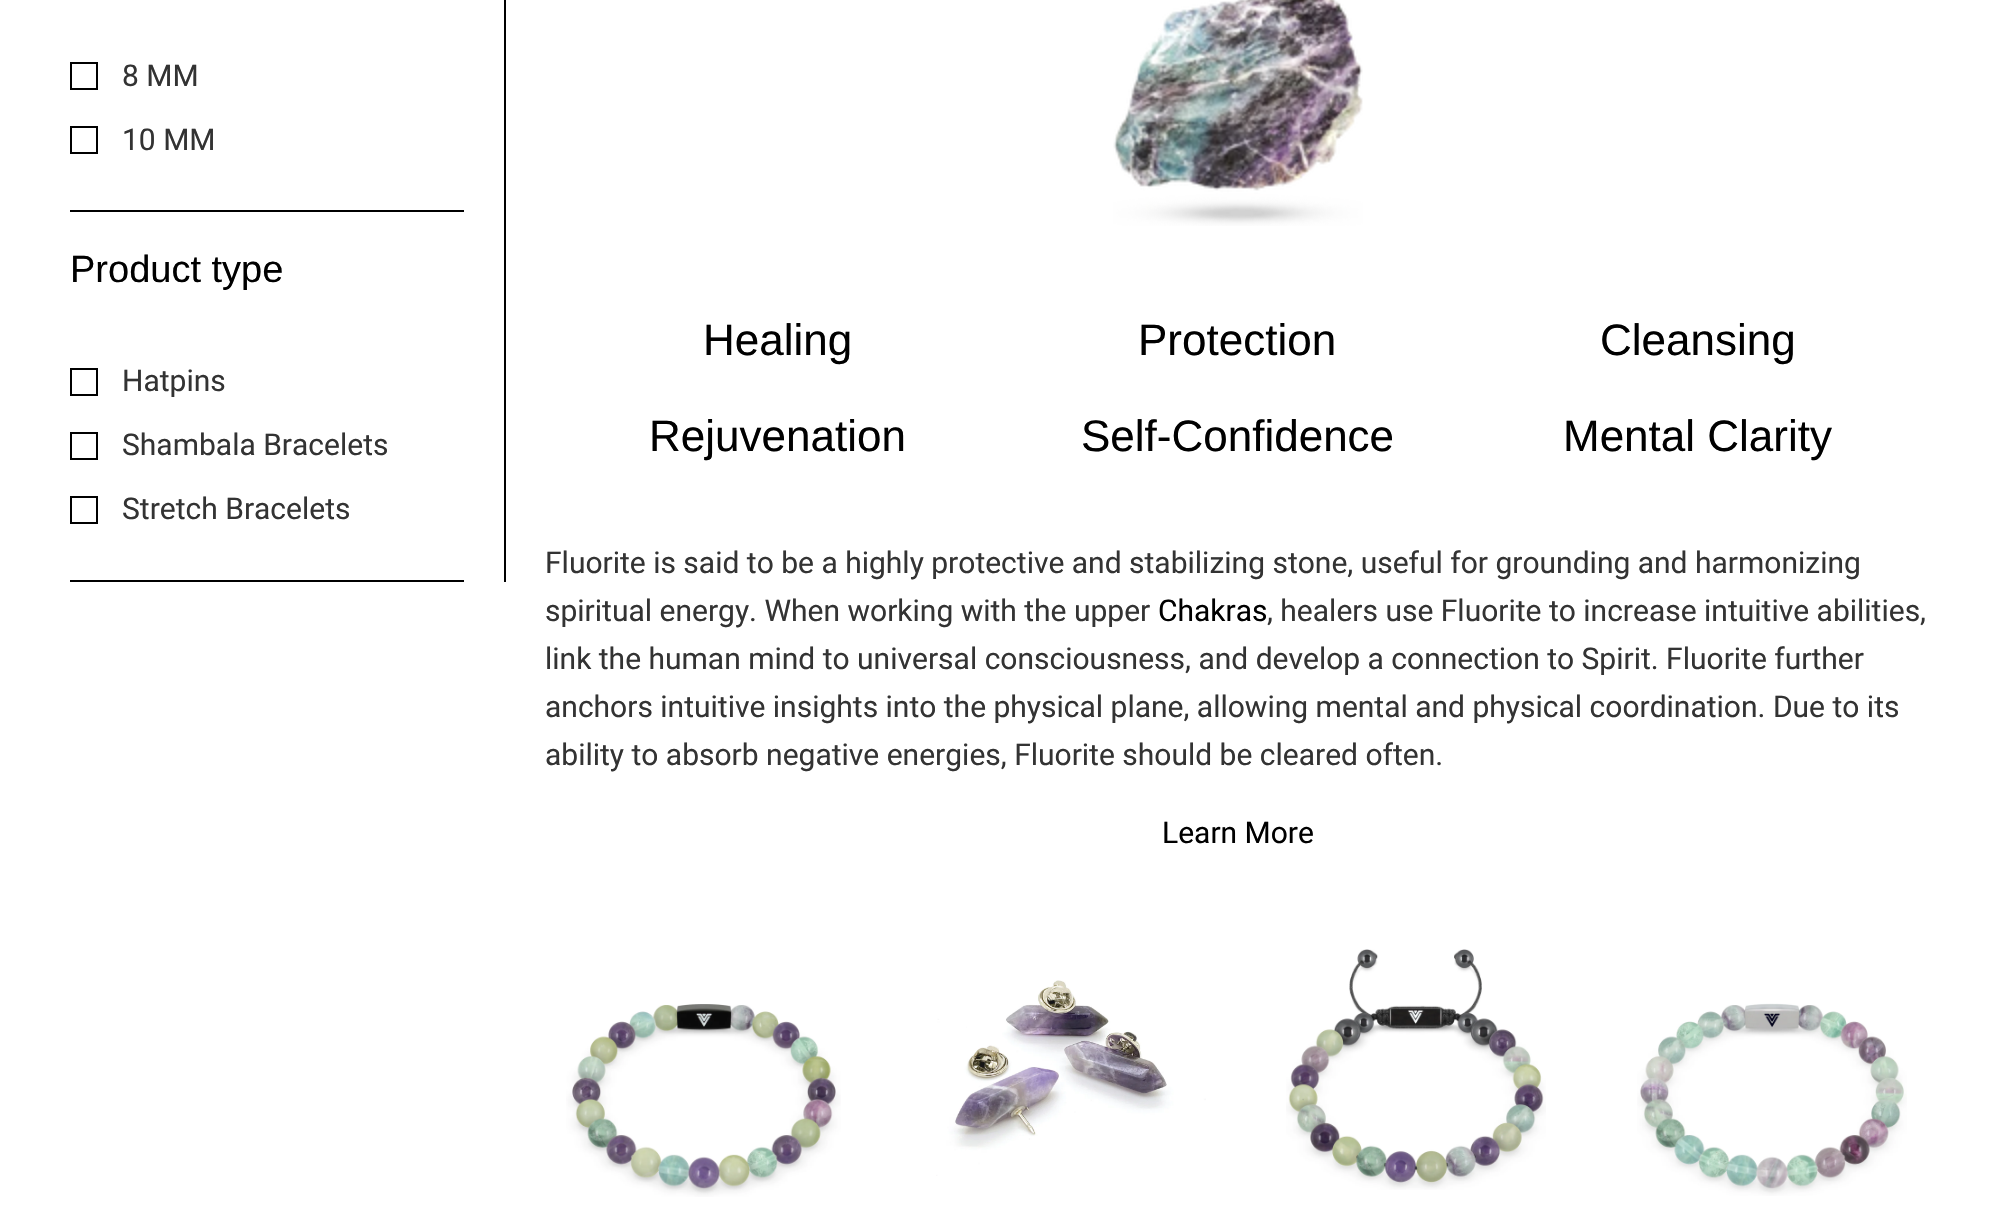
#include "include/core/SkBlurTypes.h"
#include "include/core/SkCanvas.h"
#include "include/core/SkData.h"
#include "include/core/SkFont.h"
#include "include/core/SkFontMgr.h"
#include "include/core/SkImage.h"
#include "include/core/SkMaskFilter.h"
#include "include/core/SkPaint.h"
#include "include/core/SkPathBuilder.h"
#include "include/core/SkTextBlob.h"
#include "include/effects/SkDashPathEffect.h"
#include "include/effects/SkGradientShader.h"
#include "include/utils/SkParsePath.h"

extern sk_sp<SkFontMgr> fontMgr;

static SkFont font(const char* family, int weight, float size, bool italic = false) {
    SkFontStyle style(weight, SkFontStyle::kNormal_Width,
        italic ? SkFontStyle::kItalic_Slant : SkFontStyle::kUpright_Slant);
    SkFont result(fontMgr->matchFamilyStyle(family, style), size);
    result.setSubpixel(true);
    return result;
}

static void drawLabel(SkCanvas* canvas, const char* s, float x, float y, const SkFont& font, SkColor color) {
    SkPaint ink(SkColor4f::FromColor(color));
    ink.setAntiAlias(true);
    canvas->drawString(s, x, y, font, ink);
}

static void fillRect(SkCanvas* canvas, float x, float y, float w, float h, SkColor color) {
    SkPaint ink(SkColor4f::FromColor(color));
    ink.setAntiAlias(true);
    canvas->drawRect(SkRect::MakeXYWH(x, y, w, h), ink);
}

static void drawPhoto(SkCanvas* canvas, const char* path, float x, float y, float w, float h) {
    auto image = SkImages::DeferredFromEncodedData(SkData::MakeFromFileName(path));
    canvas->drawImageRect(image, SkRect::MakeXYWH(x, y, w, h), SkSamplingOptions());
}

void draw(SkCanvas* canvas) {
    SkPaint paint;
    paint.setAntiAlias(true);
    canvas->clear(0xFFFFFFFF);
    fillRect(canvas, 504, 0, 2, 582, 0xFF000000);
    paint.setStroke(true);
    paint.setStrokeWidth(2);
    paint.setColor(0xFF000000);
    canvas->drawRect(SkRect::MakeXYWH(71, 63, 26, 26), paint);
    SkFont font1 = font("Roboto", 400, 30);
    drawLabel(canvas, "8 MM", 122, 86, font1, 0xFF333333);
    canvas->drawRect(SkRect::MakeXYWH(71, 127, 26, 26), paint);
    drawLabel(canvas, "10 MM", 122, 150, font1, 0xFF333333);
    fillRect(canvas, 70, 210, 394, 2, 0xFF000000);
    SkFont font2 = font("Liberation Sans", 400, 38);
    drawLabel(canvas, "Product type", 70, 282, font2, 0xFF000000);
    canvas->drawRect(SkRect::MakeXYWH(71, 369, 26, 26), paint);
    drawLabel(canvas, "Hatpins", 122, 391, font1, 0xFF333333);
    canvas->drawRect(SkRect::MakeXYWH(71, 433, 26, 26), paint);
    drawLabel(canvas, "Shambala Bracelets", 122, 455, font1, 0xFF333333);
    canvas->drawRect(SkRect::MakeXYWH(71, 497, 26, 26), paint);
    drawLabel(canvas, "Stretch Bracelets", 122, 519, font1, 0xFF333333);
    fillRect(canvas, 70, 580, 394, 2, 0xFF000000);
    drawPhoto(canvas, "assets/img1.png", 1113, 0, 250, 226);
    SkFont font3 = font("Liberation Sans", 400, 44);
    drawLabel(canvas, "Healing", 703, 355, font3, 0xFF000000);
    drawLabel(canvas, "Protection", 1138, 355, font3, 0xFF000000);
    drawLabel(canvas, "Cleansing", 1600, 355, font3, 0xFF000000);
    drawLabel(canvas, "Rejuvenation", 649, 451, font3, 0xFF000000);
    drawLabel(canvas, "Self-Confidence", 1081, 451, font3, 0xFF000000);
    drawLabel(canvas, "Mental Clarity", 1563, 451, font3, 0xFF000000);
    drawLabel(canvas, "Fluorite is said to be a highly protective and stabilizing stone, useful for grounding and harmonizing", 545, 573, font1, 0xFF333333);
    drawLabel(canvas, "spiritual energy. When working with the upper", 545, 621, font1, 0xFF333333);
    drawLabel(canvas, "Chakras", 1158, 621, font1, 0xFF000000);
    drawLabel(canvas, ", healers use Fluorite to increase intuitive abilities,", 1267, 621, font1, 0xFF333333);
    drawLabel(canvas, "link the human mind to universal consciousness, and develop a connection to Spirit. Fluorite further", 545, 669, font1, 0xFF333333);
    drawLabel(canvas, "anchors intuitive insights into the physical plane, allowing mental and physical coordination. Due to its", 545, 717, font1, 0xFF333333);
    drawLabel(canvas, "ability to absorb negative energies, Fluorite should be cleared often.", 545, 765, font1, 0xFF333333);
    drawLabel(canvas, "Learn More", 1162, 843, font1, 0xFF000000);
    drawPhoto(canvas, "assets/img2.png", 566, 1004, 275, 193);
    drawPhoto(canvas, "assets/img3.png", 936, 980, 270, 196);
    drawPhoto(canvas, "assets/img4.png", 1286, 949, 260, 241);
    drawPhoto(canvas, "assets/img5.png", 1637, 1003, 270, 193);
}
